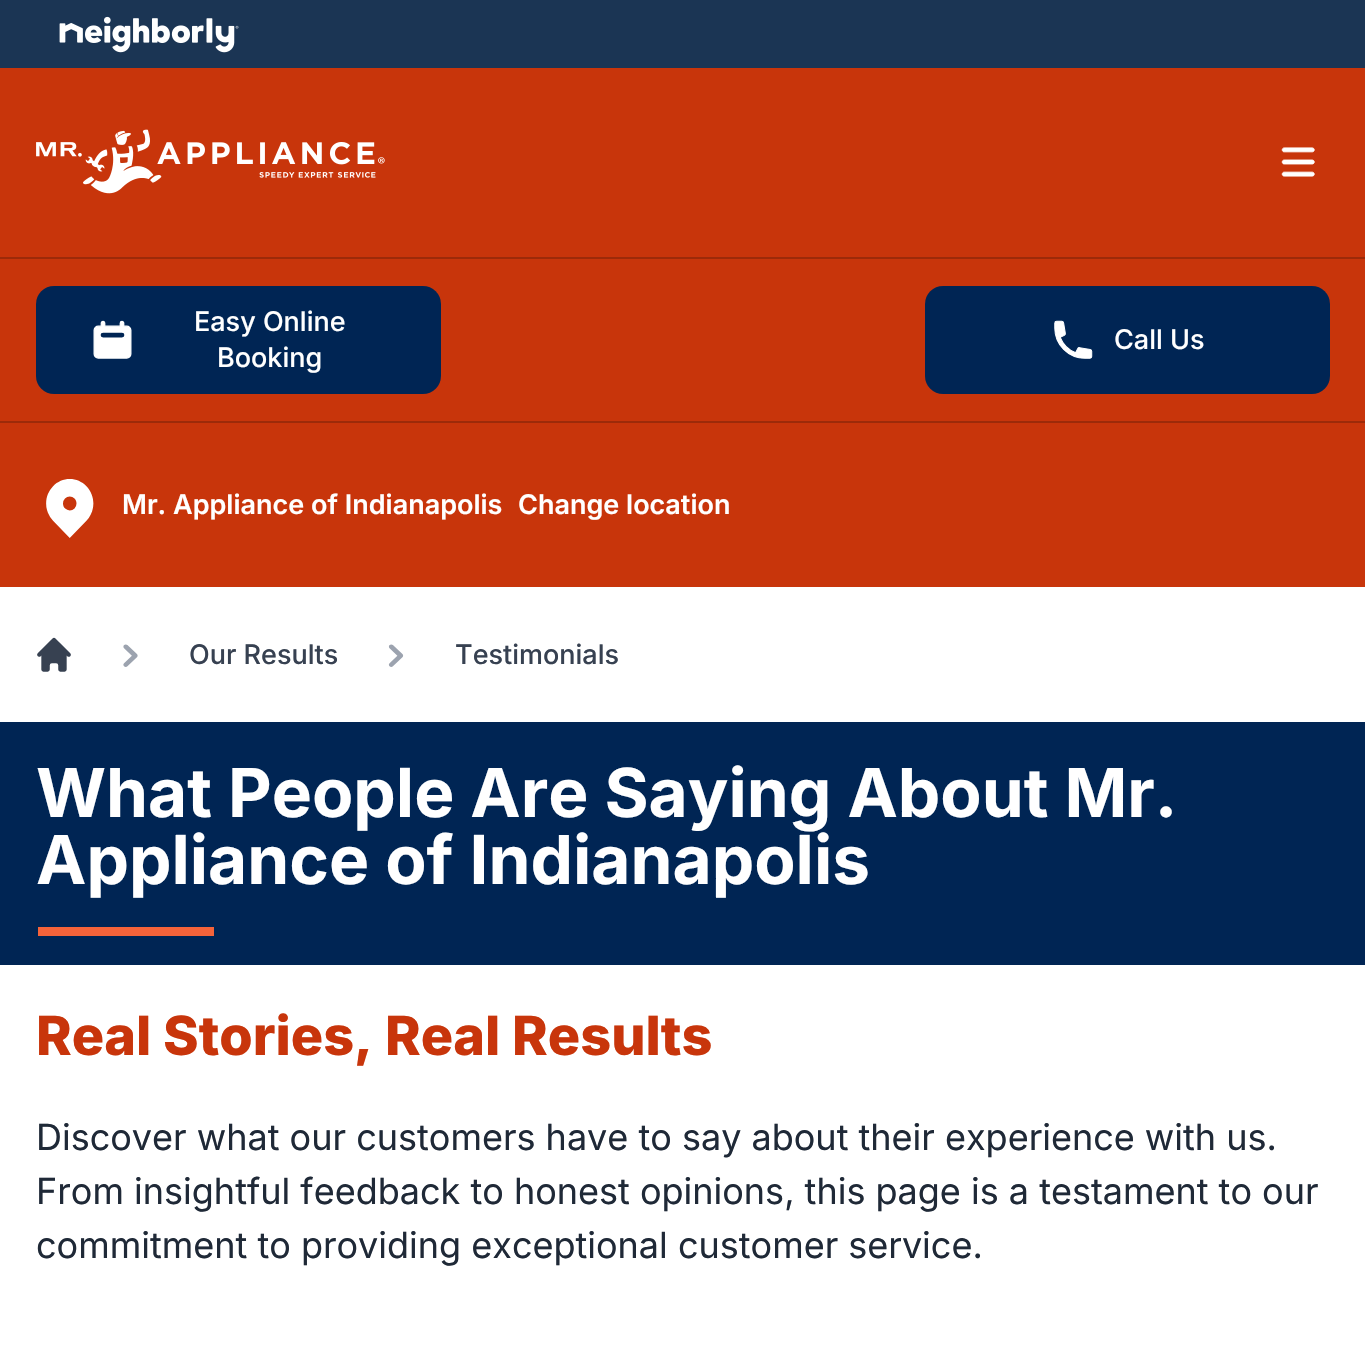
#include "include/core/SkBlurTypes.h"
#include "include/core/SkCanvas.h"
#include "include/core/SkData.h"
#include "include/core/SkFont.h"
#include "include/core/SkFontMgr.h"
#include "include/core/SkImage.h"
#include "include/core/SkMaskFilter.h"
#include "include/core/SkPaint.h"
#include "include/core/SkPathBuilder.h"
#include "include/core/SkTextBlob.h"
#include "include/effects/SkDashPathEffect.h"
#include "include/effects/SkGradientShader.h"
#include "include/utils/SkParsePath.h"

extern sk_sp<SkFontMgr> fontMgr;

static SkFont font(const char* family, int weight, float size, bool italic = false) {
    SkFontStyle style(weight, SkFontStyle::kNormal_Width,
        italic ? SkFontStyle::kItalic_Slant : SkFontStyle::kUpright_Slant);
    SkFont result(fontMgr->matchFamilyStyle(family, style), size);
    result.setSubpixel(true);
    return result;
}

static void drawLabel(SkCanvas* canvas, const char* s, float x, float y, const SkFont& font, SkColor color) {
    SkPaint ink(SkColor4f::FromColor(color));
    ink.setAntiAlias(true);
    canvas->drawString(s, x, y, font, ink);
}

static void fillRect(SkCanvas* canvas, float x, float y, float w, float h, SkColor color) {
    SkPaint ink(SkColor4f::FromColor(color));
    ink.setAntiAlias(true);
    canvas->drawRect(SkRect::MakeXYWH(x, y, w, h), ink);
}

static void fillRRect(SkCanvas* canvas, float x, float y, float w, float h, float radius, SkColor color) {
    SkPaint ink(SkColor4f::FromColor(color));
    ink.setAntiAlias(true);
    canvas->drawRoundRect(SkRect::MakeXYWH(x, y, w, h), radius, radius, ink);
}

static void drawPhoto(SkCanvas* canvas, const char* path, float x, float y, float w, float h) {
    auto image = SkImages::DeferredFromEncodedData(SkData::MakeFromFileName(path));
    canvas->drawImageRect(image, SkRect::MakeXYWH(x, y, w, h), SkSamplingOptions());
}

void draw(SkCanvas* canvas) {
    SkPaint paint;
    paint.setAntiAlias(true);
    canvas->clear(0xFFFFFFFF);
    fillRect(canvas, 0, 0, 1365, 68, 0xFF1B3554);
    drawPhoto(canvas, "assets/img1.png", 59, 16, 180, 37);
    fillRect(canvas, 0, 68, 1365, 519, 0xFFC8350B);
    drawPhoto(canvas, "assets/img2.png", 36, 129, 349, 65);
    drawPhoto(canvas, "assets/img3.png", 1281, 147, 34, 30);
    fillRect(canvas, 0, 257, 1365, 2, 0xFF9D2A09);
    fillRect(canvas, 0, 421, 1365, 2, 0xFF9D2A09);
    fillRRect(canvas, 36, 286, 405, 108, 18, 0xFF002554);
    drawPhoto(canvas, "assets/img4.png", 93, 320, 39, 39);
    SkFont font1 = font("Inter", 500, 27);
    drawLabel(canvas, "Easy Online", 194, 331, font1, 0xFFFFFFFF);
    drawLabel(canvas, "Booking", 217, 367, font1, 0xFFFFFFFF);
    fillRRect(canvas, 925, 286, 405, 108, 18, 0xFF002554);
    drawPhoto(canvas, "assets/img5.png", 1054, 320, 39, 39);
    drawLabel(canvas, "Call Us", 1114, 349, font1, 0xFFFFFFFF);
    drawPhoto(canvas, "assets/img6.png", 46, 479, 48, 59);
    SkFont font2 = font("Inter", 600, 27);
    drawLabel(canvas, "Mr. Appliance of Indianapolis", 122, 514, font2, 0xFFFFFFFF);
    drawLabel(canvas, "Change location", 518, 514, font2, 0xFFFFFFFF);
    drawPhoto(canvas, "assets/img7.png", 37, 637, 34, 35);
    drawPhoto(canvas, "assets/img8.png", 123, 644, 15, 23);
    drawLabel(canvas, "Our Results", 189, 664, font1, 0xFF374151);
    drawPhoto(canvas, "assets/img9.png", 388, 644, 16, 23);
    drawLabel(canvas, "Testimonials", 455, 664, font1, 0xFF374151);
    fillRect(canvas, 0, 722, 1365, 243, 0xFF002554);
    SkFont font3 = font("Inter", 700, 67.5f);
    drawLabel(canvas, "What People Are Saying About Mr.", 36, 817, font3, 0xFFFFFFFF);
    drawLabel(canvas, "Appliance of Indianapolis", 36, 884, font3, 0xFFFFFFFF);
    fillRect(canvas, 38, 927, 176, 9, 0xFFF4633A);
    SkFont font4 = font("Inter", 800, 54);
    drawLabel(canvas, "Real Stories, Real Results", 36, 1055, font4, 0xFFC8350B);
    SkFont font5 = font("Inter", 400, 36);
    drawLabel(canvas, "Discover what our customers have to say about their experience with us.", 36, 1150, font5, 0xFF1F2937);
    drawLabel(canvas, "From insightful feedback to honest opinions, this page is a testament to our", 36, 1204, font5, 0xFF1F2937);
    drawLabel(canvas, "commitment to providing exceptional customer service.", 36, 1258, font5, 0xFF1F2937);
}
